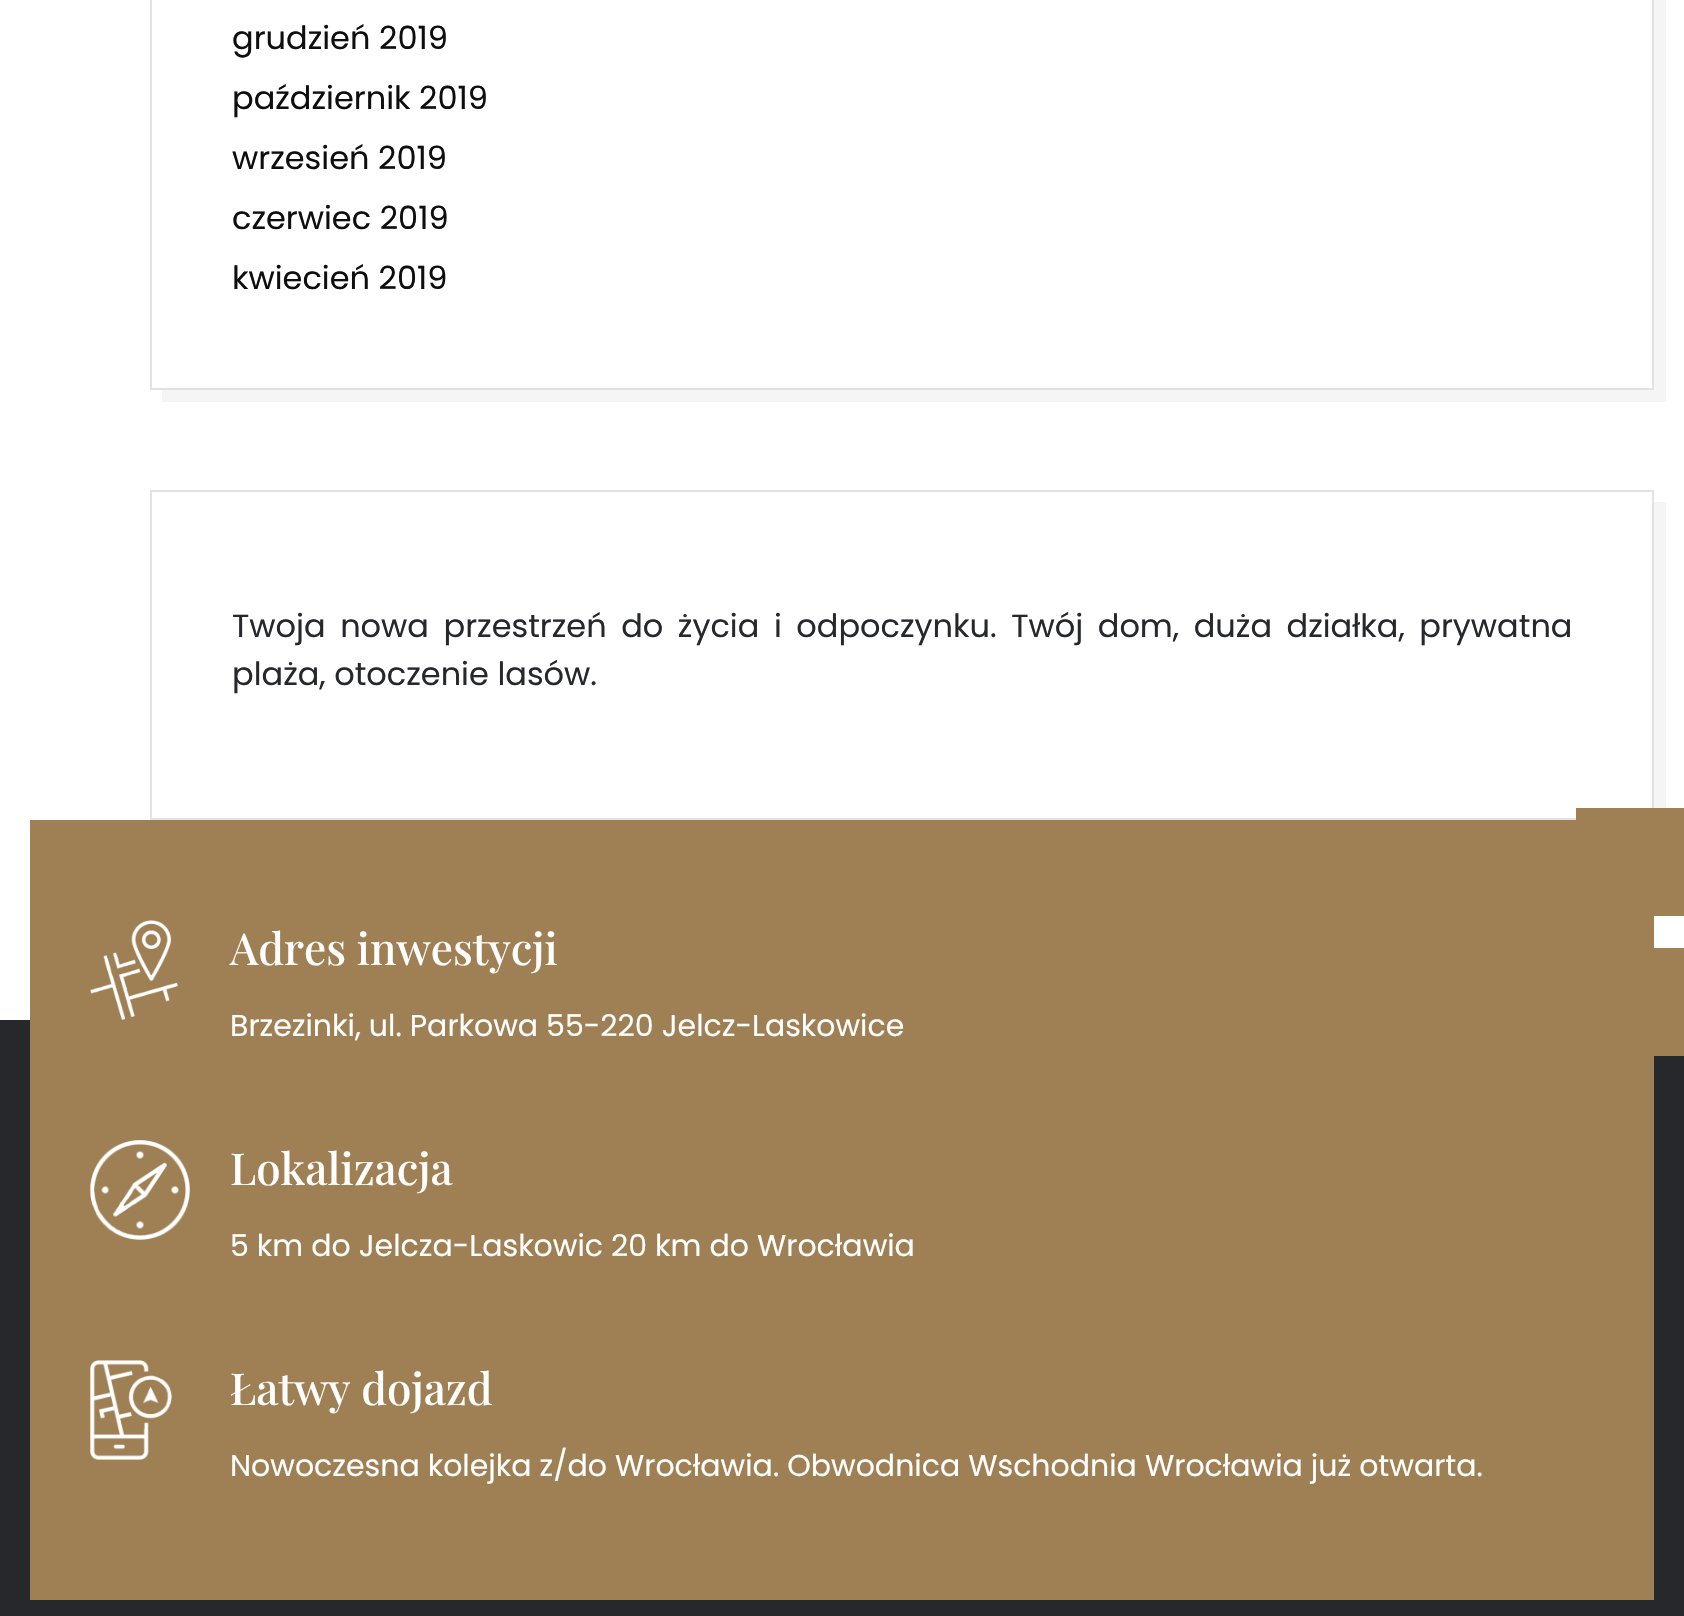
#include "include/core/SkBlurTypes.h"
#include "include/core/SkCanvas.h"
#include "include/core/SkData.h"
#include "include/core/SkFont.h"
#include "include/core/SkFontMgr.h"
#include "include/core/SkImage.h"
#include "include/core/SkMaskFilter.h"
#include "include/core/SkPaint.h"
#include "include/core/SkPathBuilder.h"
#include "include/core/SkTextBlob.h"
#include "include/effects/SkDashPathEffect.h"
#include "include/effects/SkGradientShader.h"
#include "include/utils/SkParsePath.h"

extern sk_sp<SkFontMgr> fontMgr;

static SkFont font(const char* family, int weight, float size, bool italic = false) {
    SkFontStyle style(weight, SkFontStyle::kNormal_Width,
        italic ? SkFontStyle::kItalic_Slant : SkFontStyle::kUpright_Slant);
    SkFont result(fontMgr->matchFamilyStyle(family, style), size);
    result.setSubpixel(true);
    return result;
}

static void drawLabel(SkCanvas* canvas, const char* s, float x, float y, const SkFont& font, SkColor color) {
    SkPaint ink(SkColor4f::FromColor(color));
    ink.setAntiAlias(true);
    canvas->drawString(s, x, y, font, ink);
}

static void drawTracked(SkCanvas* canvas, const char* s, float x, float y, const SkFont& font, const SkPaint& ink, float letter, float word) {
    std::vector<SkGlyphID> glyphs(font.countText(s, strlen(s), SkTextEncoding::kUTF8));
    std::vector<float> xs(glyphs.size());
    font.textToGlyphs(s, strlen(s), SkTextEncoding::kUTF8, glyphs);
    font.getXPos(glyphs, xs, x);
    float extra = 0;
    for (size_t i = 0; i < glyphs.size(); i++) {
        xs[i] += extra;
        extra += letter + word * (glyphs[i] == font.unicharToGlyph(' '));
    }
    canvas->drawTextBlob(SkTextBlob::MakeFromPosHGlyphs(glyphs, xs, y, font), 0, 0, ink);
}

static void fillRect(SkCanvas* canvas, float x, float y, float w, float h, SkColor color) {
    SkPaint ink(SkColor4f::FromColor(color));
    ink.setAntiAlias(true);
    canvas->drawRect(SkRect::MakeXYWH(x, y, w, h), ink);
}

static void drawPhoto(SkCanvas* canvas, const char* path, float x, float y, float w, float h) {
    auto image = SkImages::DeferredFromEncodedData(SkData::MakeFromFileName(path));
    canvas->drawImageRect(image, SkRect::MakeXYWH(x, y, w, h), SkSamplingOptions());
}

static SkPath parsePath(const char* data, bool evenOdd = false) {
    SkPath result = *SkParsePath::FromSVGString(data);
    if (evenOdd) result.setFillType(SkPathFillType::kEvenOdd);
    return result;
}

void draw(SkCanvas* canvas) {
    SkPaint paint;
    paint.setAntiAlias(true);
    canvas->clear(0xFFFFFFFF);
    paint.setColor(0xFFF5F5F5);
    canvas->drawPath(parsePath("M162 390V402H1666V-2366H1654V390Z"), paint);
    paint.setStroke(true);
    paint.setStrokeWidth(2);
    paint.setColor(0xFFE2E2E2);
    canvas->drawRect(SkRect::MakeXYWH(151, -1, 1502, 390), paint);
    SkFont font1 = font("Poppins", 400, 32);
    drawLabel(canvas, "grudzień 2019", 232, 49, font1, 0xFF0E0E0E);
    drawLabel(canvas, "październik 2019", 232, 109, font1, 0xFF0E0E0E);
    drawLabel(canvas, "wrzesień 2019", 232, 169, font1, 0xFF0E0E0E);
    drawLabel(canvas, "czerwiec 2019", 232, 229, font1, 0xFF0E0E0E);
    drawLabel(canvas, "kwiecień 2019", 232, 289, font1, 0xFF0E0E0E);
    paint.setStroke(false);
    paint.setColor(0xFFF5F5F5);
    canvas->drawPath(parsePath("M162 820V832H1666V502H1654V820Z"), paint);
    paint.setStroke(true);
    paint.setColor(0xFFE2E2E2);
    canvas->drawRect(SkRect::MakeXYWH(151, 491, 1502, 328), paint);
    paint.setStroke(false);
    paint.setColor(0xFF26282B);
    drawTracked(canvas, "Twoja nowa przestrzeń do życia i odpoczynku. Twój dom, duża działka, prywatna", 232, 637, font1, paint, 0, 6);
    drawLabel(canvas, "plaża, otoczenie lasów.", 232, 685, font1, 0xFF26282B);
    fillRect(canvas, 0, 1020, 1684, 596, 0xFF26282B);
    fillRect(canvas, 30, 820, 1624, 780, 0xFF9F8054);
    fillRect(canvas, 1576, 808, 108, 108, 0xFF9F8054);
    drawPhoto(canvas, "assets/img1.png", 90, 920, 88, 100);
    SkFont font2 = font("Playfair Display", 500, 44);
    drawLabel(canvas, "Adres inwestycji", 230, 965, font2, 0xFFFFFFFF);
    SkFont font3 = font("Poppins", 400, 30);
    drawLabel(canvas, "Brzezinki, ul. Parkowa 55-220 Jelcz-Laskowice", 230, 1036, font3, 0xFFFFFFFF);
    drawPhoto(canvas, "assets/img2.png", 90, 1140, 100, 100);
    drawLabel(canvas, "Lokalizacja", 230, 1185, font2, 0xFFFFFFFF);
    drawLabel(canvas, "5 km do Jelcza-Laskowic 20 km do Wrocławia", 230, 1256, font3, 0xFFFFFFFF);
    drawPhoto(canvas, "assets/img3.png", 90, 1360, 82, 100);
    drawLabel(canvas, "Łatwy dojazd", 230, 1405, font2, 0xFFFFFFFF);
    drawLabel(canvas, "Nowoczesna kolejka z/do Wrocławia. Obwodnica Wschodnia Wrocławia już otwarta.", 230, 1476, font3, 0xFFFFFFFF);
    fillRect(canvas, 1654, 948, 30, 108, 0xFF9F8054);
}
